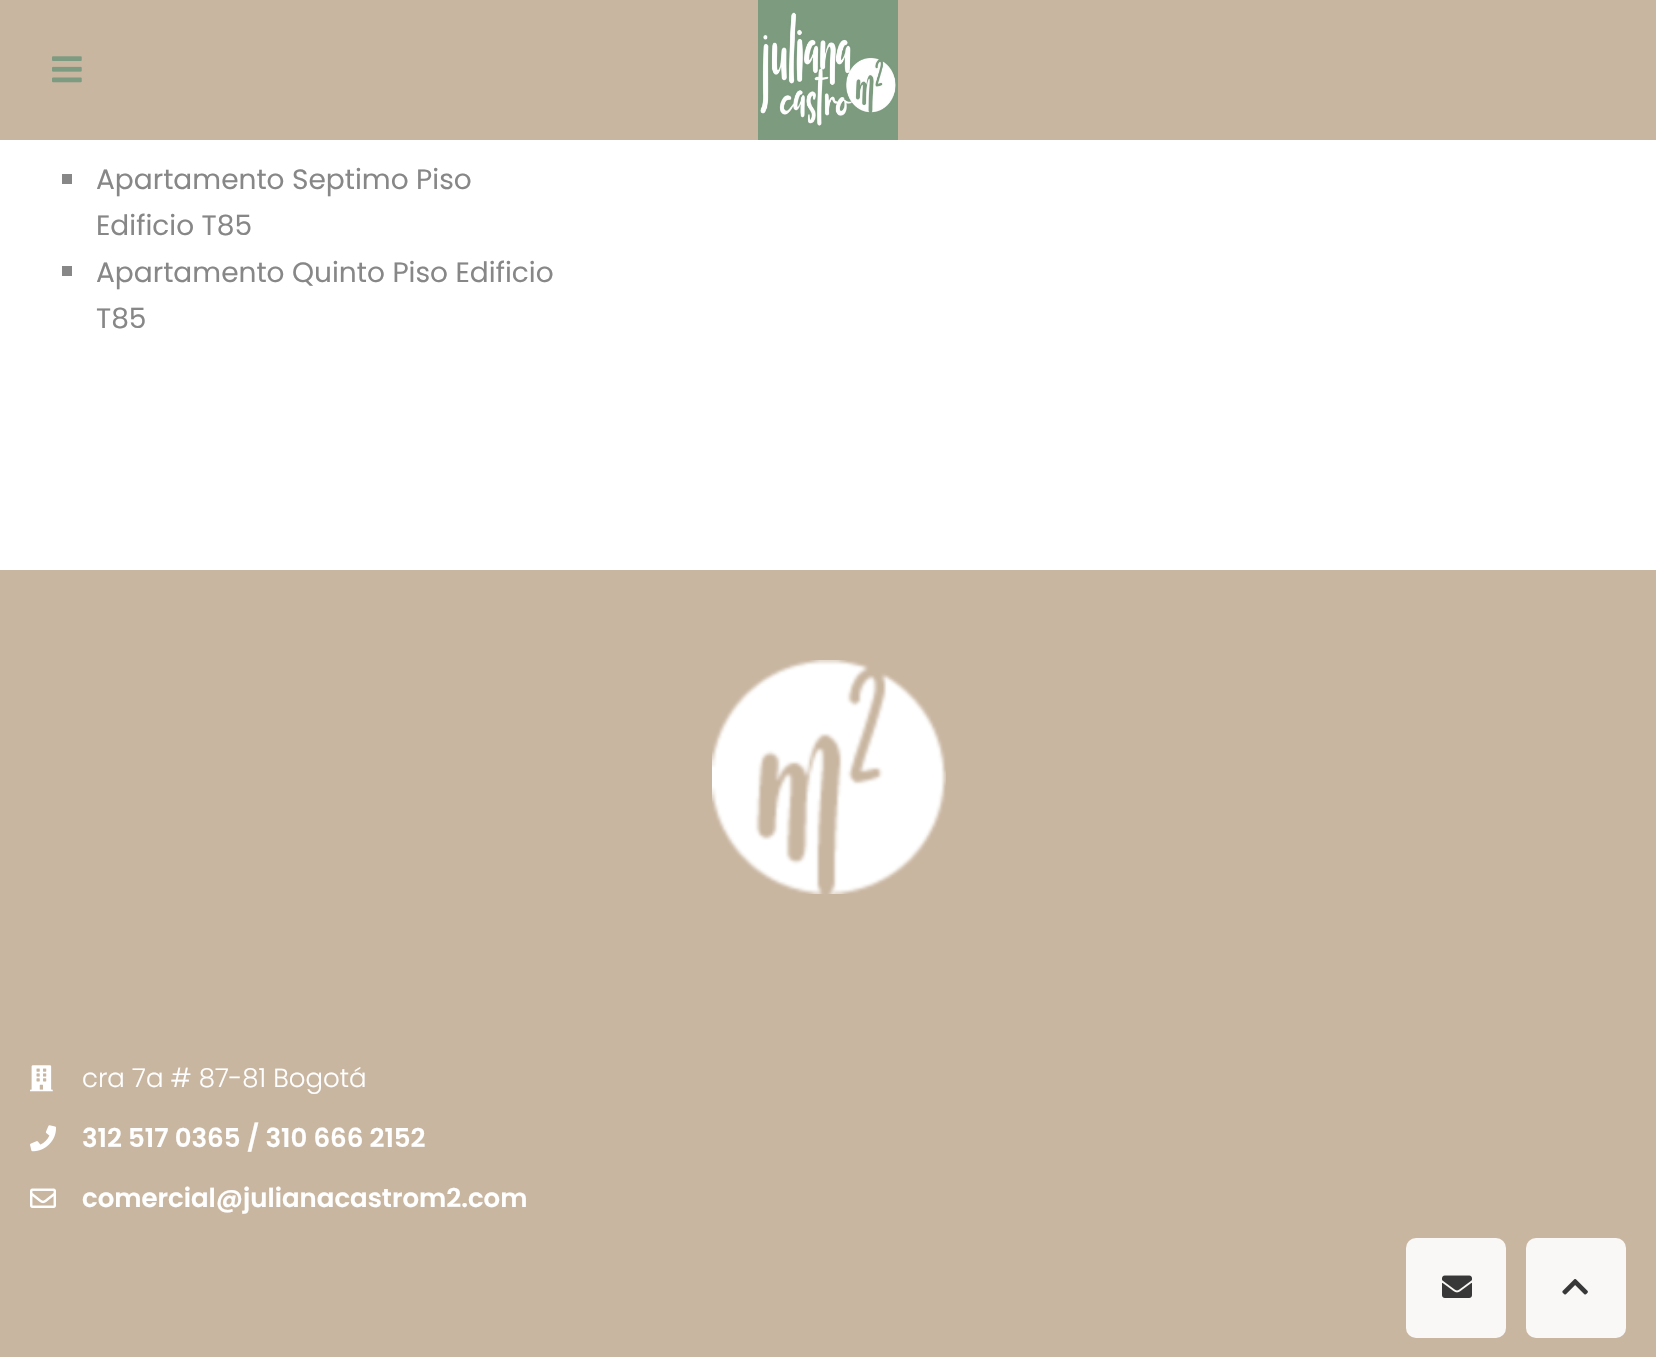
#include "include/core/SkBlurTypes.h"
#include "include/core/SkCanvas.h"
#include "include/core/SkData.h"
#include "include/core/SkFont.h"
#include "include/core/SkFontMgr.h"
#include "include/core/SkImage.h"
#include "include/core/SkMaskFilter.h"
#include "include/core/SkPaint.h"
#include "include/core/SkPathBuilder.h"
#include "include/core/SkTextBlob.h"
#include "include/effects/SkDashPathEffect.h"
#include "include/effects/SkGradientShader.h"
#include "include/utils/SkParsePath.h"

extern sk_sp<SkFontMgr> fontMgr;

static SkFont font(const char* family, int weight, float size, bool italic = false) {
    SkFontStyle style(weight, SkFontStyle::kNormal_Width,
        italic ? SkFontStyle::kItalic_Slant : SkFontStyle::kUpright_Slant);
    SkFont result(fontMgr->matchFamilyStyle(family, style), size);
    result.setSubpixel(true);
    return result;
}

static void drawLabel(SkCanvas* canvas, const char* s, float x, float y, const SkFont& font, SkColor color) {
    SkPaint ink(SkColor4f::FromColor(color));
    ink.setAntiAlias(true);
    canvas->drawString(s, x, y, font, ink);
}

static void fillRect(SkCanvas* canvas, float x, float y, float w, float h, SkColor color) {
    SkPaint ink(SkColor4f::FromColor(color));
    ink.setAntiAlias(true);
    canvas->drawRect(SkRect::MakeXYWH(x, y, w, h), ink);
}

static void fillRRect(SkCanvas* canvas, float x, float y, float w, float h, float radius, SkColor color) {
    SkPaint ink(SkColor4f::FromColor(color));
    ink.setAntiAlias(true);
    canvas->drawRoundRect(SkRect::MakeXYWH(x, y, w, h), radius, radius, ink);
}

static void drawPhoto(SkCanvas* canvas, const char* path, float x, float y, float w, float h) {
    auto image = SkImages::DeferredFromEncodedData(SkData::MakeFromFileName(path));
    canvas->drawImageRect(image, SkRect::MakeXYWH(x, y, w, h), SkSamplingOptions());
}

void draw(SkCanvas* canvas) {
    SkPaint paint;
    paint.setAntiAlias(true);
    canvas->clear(0xFFC9B6A1);
    drawPhoto(canvas, "assets/img1.png", 52, 56, 30, 27);
    drawPhoto(canvas, "assets/img2.png", 758, 0, 140, 140);
    fillRect(canvas, 0, 140, 1656, 430, 0xFFFFFFFF);
    fillRect(canvas, 62, 174, 10, 10, 0xFF878787);
    SkFont font1 = font("Poppins", 400, 28);
    drawLabel(canvas, "Apartamento Septimo Piso", 96, 189, font1, 0xFF878787);
    drawLabel(canvas, "Edificio T85", 96, 235, font1, 0xFF878787);
    fillRect(canvas, 62, 266, 10, 10, 0xFF878787);
    drawLabel(canvas, "Apartamento Quinto Piso Edificio", 96, 282, font1, 0xFF878787);
    drawLabel(canvas, "T85", 96, 328, font1, 0xFF878787);
    drawPhoto(canvas, "assets/img3.png", 712, 660, 234, 234);
    drawPhoto(canvas, "assets/img4.png", 30, 1065, 23, 27);
    SkFont font2 = font("Poppins", 300, 26);
    drawLabel(canvas, "cra 7a # 87-81 Bogotá", 82, 1087, font2, 0xFFFFFFFF);
    drawPhoto(canvas, "assets/img5.png", 30, 1125, 26, 27);
    SkFont font3 = font("Poppins", 600, 26);
    drawLabel(canvas, "312 517 0365 / 310 666 2152", 82, 1147, font3, 0xFFFFFFFF);
    drawPhoto(canvas, "assets/img6.png", 30, 1188, 26, 20);
    drawLabel(canvas, "comercial@julianacastrom2.com", 82, 1207, font3, 0xFFFFFFFF);
    fillRRect(canvas, 1406, 1238, 100, 100, 10, 0xFFFAF8F6);
    drawPhoto(canvas, "assets/img7.png", 1442, 1275, 30, 23);
    fillRRect(canvas, 1526, 1238, 100, 100, 10, 0xFFFAF8F6);
    drawPhoto(canvas, "assets/img8.png", 1562, 1279, 26, 16);
}
